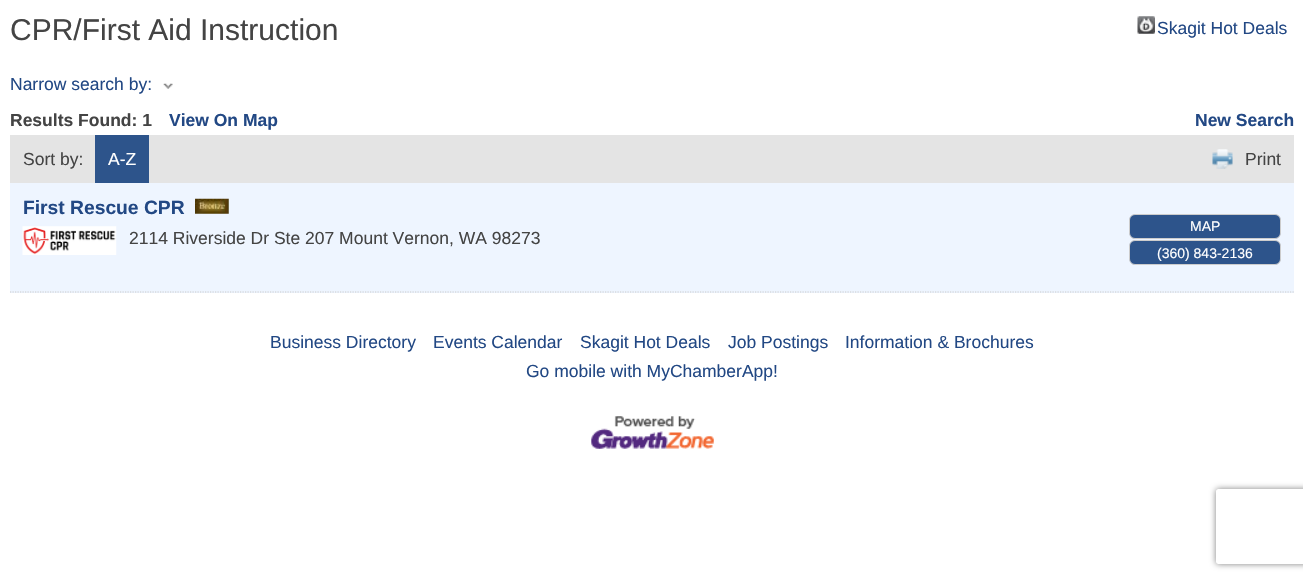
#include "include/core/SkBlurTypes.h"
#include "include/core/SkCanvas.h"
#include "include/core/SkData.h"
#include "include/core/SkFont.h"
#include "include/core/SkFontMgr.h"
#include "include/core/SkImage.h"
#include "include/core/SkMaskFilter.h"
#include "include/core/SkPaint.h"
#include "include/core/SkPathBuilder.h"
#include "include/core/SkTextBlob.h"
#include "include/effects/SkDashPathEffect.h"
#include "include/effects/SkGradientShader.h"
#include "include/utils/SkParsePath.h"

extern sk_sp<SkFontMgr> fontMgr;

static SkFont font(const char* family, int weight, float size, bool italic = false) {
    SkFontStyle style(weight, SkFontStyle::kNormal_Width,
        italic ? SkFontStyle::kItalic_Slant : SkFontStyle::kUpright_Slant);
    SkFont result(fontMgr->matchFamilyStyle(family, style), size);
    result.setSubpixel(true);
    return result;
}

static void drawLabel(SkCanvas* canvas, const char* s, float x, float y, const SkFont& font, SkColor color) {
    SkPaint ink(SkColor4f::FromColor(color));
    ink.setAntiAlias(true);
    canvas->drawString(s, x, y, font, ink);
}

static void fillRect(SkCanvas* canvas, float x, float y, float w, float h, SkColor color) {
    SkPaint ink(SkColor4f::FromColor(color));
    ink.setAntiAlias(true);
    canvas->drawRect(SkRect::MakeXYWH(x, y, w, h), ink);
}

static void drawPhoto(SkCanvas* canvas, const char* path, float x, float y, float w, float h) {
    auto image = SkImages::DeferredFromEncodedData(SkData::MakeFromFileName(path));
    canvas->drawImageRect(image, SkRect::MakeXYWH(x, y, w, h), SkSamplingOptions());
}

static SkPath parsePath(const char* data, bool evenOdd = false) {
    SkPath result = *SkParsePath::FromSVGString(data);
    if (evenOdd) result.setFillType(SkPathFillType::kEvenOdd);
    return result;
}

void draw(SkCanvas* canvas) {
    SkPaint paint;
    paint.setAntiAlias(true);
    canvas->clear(0xFFFFFFFF);
    SkFont font1 = font("Liberation Sans", 400, 30);
    drawLabel(canvas, "CPR/First Aid Instruction", 10, 40, font1, 0xFF444444);
    drawPhoto(canvas, "assets/img1.png", 1137, 16, 18, 18);
    SkFont font2 = font("Liberation Sans", 400, 17.5f);
    drawLabel(canvas, "Skagit Hot Deals", 1157, 34, font2, 0xFF224884);
    drawLabel(canvas, "Narrow search by:", 10, 90, font2, 0xFF224884);
    drawPhoto(canvas, "assets/img2.png", 163, 83, 10, 6);
    SkFont font3 = font("Liberation Sans", 700, 17.5f);
    drawLabel(canvas, "Results Found: 1", 10, 126, font3, 0xFF444444);
    drawLabel(canvas, "View On Map", 169, 126, font3, 0xFF224884);
    drawLabel(canvas, "New Search", 1195, 126, font3, 0xFF224884);
    fillRect(canvas, 10, 135, 1284, 48, 0xFFE4E4E4);
    drawLabel(canvas, "Sort by:", 23, 165, font2, 0xFF444444);
    fillRect(canvas, 95, 135, 54, 48, 0xFF2D548B);
    drawLabel(canvas, "A-Z", 108, 165, font2, 0xFFFFFFFF);
    drawPhoto(canvas, "assets/img3.png", 1212, 149, 21, 20);
    drawLabel(canvas, "Print", 1245, 165, font2, 0xFF444444);
    fillRect(canvas, 10, 183, 1284, 110, 0xFFEEF5FF);
    paint.setStroke(true);
    paint.setStrokeWidth(1.2f);
    paint.setColor(0xFFCCCCCC);
    paint.setPathEffect(SkDashPathEffect::Make({{1.25f, 1.25f}}, 0));
    canvas->drawPath(parsePath("M10 292H1294"), paint);
    paint.setPathEffect(nullptr);
    SkFont font4 = font("Liberation Sans", 700, 19.25f);
    drawLabel(canvas, "First Rescue CPR", 23, 214, font4, 0xFF224884);
    drawPhoto(canvas, "assets/img4.png", 195, 198, 34, 16);
    drawPhoto(canvas, "assets/img5.png", 22, 226, 95, 29);
    drawLabel(canvas, "2114 Riverside Dr Ste 207 Mount Vernon, WA 98273", 129, 244, font2, 0xFF444444);
    paint.setStroke(false);
    paint.setColor(0xFF2D548B);
    canvas->drawRoundRect(SkRect::MakeXYWH(1129.5f, 214.5f, 151, 24), 5.5f, 5.5f, paint);
    paint.setStroke(true);
    paint.setStrokeWidth(1);
    paint.setColor(0xFFCCCCCC);
    canvas->drawRoundRect(SkRect::MakeXYWH(1129.5f, 214.5f, 151, 24), 5.5f, 5.5f, paint);
    SkFont font5 = font("Liberation Sans", 400, 14);
    drawLabel(canvas, "MAP", 1190, 231, font5, 0xFFFFFFFF);
    paint.setStroke(false);
    paint.setColor(0xFF2D548B);
    canvas->drawRoundRect(SkRect::MakeXYWH(1129.5f, 240.5f, 151, 24), 5.5f, 5.5f, paint);
    paint.setStroke(true);
    paint.setColor(0xFFCCCCCC);
    canvas->drawRoundRect(SkRect::MakeXYWH(1129.5f, 240.5f, 151, 24), 5.5f, 5.5f, paint);
    drawLabel(canvas, "(360) 843-2136", 1157, 258, font5, 0xFFFFFFFF);
    drawLabel(canvas, "Business Directory", 270, 348, font2, 0xFF224884);
    drawLabel(canvas, "Events Calendar", 433, 348, font2, 0xFF224884);
    drawLabel(canvas, "Skagit Hot Deals", 580, 348, font2, 0xFF224884);
    drawLabel(canvas, "Job Postings", 728, 348, font2, 0xFF224884);
    drawLabel(canvas, "Information & Brochures", 845, 348, font2, 0xFF224884);
    drawLabel(canvas, "Go mobile with MyChamberApp!", 526, 377, font2, 0xFF224884);
    drawPhoto(canvas, "assets/img6.png", 591, 416, 123, 33);
    canvas->save();
    canvas->clipPath(parsePath("M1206 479H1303V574H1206ZM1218.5 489H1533.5C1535 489 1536 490 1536 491.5V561.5C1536 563 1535 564 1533.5 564H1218.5C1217 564 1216 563 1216 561.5V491.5C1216 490 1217 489 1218.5 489Z", true), true);
    paint.setStroke(false);
    paint.setColor(0xFF808080);
    paint.setMaskFilter(SkMaskFilter::MakeBlur(kNormal_SkBlurStyle, 3));
    canvas->drawRoundRect(SkRect::MakeXYWH(1216, 489, 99, 75), 2.5f, 2.5f, paint);
    paint.setMaskFilter(nullptr);
    canvas->restore();
}
